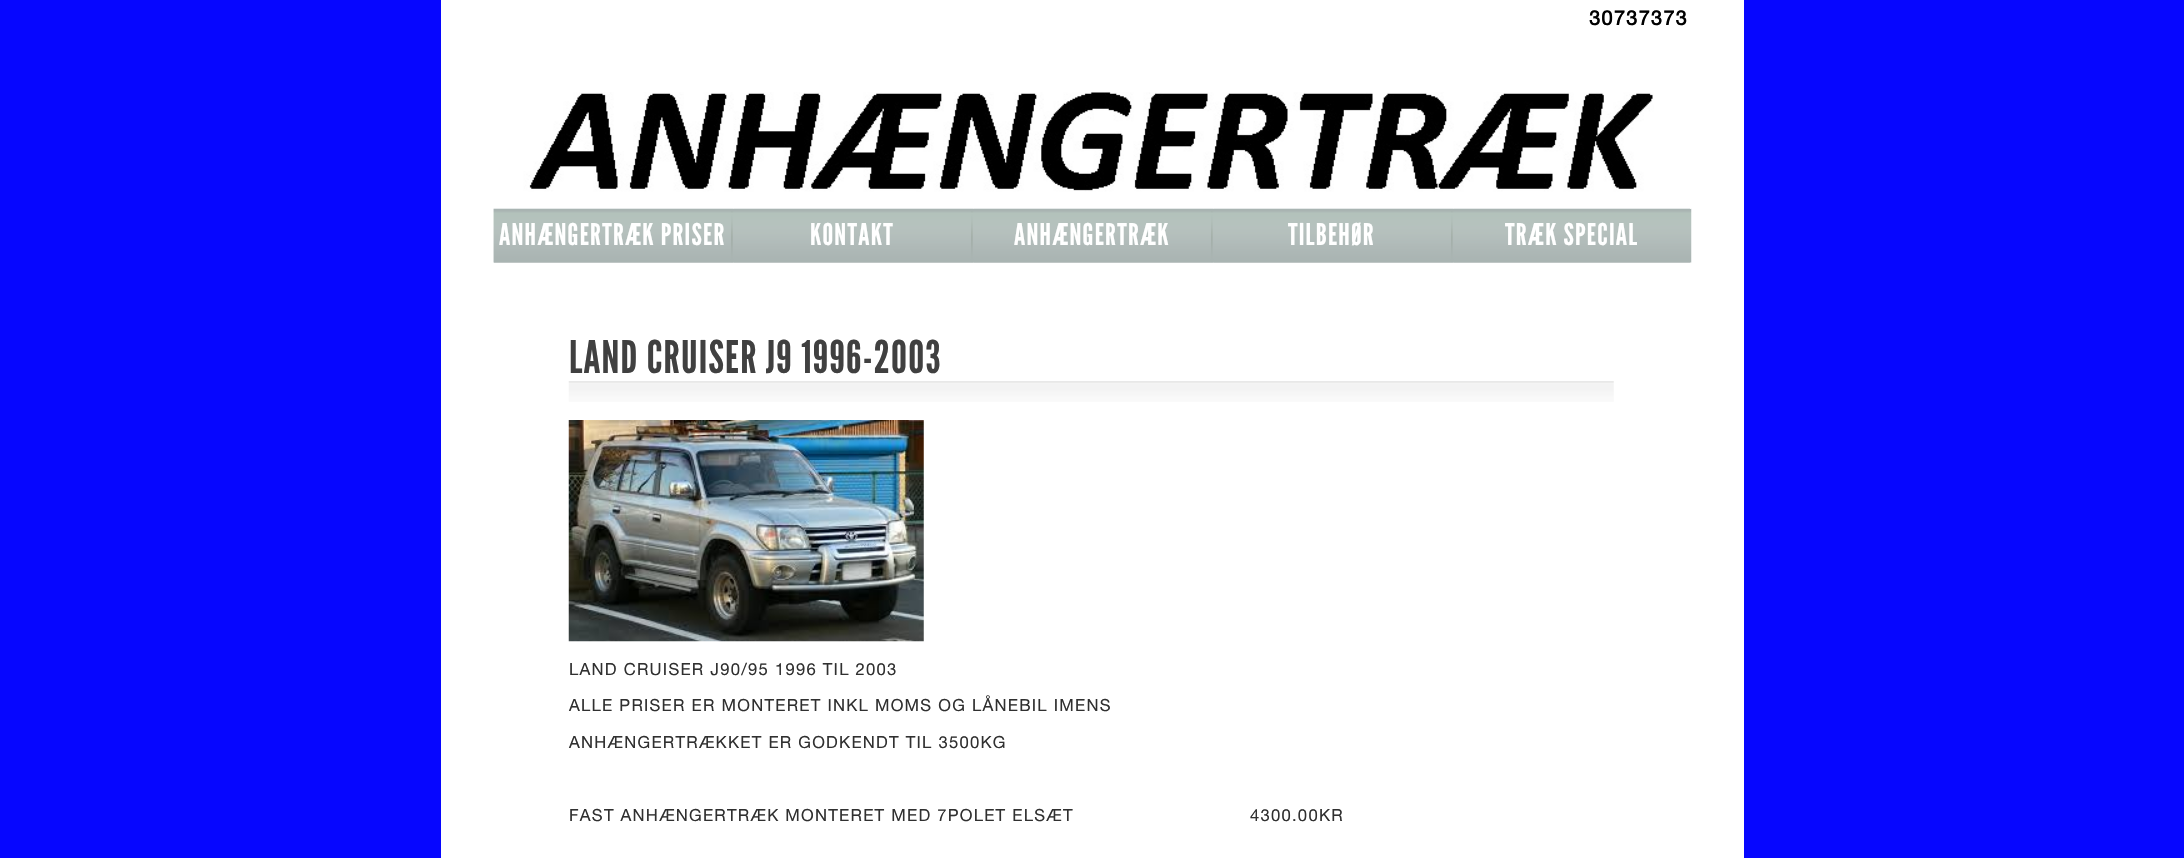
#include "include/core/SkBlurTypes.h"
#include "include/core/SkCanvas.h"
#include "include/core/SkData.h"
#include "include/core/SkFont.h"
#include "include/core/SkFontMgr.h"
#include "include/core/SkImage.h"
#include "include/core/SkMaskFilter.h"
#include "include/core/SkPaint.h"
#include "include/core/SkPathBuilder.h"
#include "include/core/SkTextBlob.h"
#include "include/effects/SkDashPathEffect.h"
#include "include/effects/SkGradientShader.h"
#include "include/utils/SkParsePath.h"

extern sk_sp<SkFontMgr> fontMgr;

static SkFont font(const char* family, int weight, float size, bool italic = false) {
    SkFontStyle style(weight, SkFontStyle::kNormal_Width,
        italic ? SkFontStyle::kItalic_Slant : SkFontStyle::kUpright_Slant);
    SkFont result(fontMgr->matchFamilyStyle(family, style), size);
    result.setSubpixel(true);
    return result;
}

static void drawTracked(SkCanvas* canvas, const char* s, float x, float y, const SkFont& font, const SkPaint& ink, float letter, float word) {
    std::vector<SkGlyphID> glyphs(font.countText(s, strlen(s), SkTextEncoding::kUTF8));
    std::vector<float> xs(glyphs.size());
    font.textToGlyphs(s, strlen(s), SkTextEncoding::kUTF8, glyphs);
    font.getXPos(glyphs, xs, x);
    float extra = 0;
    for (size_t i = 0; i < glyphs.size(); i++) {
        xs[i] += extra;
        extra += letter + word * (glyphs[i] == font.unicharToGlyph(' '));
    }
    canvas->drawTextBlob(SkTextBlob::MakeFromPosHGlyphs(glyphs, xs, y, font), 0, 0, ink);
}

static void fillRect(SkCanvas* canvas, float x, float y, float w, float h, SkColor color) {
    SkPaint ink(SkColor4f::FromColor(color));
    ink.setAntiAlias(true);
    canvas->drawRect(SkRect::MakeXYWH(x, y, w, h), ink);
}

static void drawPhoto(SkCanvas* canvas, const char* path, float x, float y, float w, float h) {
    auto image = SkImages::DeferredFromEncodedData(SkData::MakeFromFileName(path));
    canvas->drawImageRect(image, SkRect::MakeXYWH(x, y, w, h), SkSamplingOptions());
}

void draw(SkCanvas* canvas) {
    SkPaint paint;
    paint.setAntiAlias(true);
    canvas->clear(0xFF0606FF);
    fillRect(canvas, 441, 0, 1303, 858, 0xFFFFFFFF);
    SkFont font1 = font("Helvetica Neue", 700, 20);
    paint.setColor(0xFF000000);
    drawTracked(canvas, "30737373", 1589, 25, font1, paint, 1.25f, 0);
    drawPhoto(canvas, "assets/img2.png", 493, 208, 1199, 55);
    drawPhoto(canvas, "assets/img1.png", 494, 92, 1197, 117);
    drawPhoto(canvas, "assets/img3.png", 493, 208, 237, 55);
    SkFont font2 = font("League Gothic", 400, 30);
    paint.setColor(0xFFFFFFFF);
    drawTracked(canvas, "ANHÆNGERTRÆK PRISER", 499, 245, font2, paint, 1.25f, 0);
    drawPhoto(canvas, "assets/img4.png", 730, 208, 4, 55);
    drawPhoto(canvas, "assets/img5.png", 734, 208, 236, 55);
    drawTracked(canvas, "KONTAKT", 810, 245, font2, paint, 1.25f, 0);
    drawPhoto(canvas, "assets/img4.png", 970, 208, 4, 55);
    drawPhoto(canvas, "assets/img6.png", 974, 208, 236, 55);
    drawTracked(canvas, "ANHÆNGERTRÆK", 1014, 245, font2, paint, 1.25f, 0);
    drawPhoto(canvas, "assets/img7.png", 1210, 208, 4, 55);
    drawPhoto(canvas, "assets/img8.png", 1214, 208, 236, 55);
    drawTracked(canvas, "TILBEHØR", 1288, 245, font2, paint, 1.25f, 0);
    drawPhoto(canvas, "assets/img7.png", 1450, 208, 4, 55);
    drawPhoto(canvas, "assets/img9.png", 1454, 208, 236, 55);
    drawTracked(canvas, "TRÆK SPECIAL", 1505, 245, font2, paint, 1.25f, 0);
    SkFont font3 = font("League Gothic", 400, 45);
    paint.setColor(0xFF404040);
    drawTracked(canvas, "LAND CRUISER J9 1996-2003", 569, 373, font3, paint, 1.25f, 0);
    drawPhoto(canvas, "assets/img10.png", 568, 381, 1046, 21);
    drawPhoto(canvas, "assets/img11.png", 568, 420, 356, 222);
    SkFont font4 = font("Helvetica Neue", 400, 16.65f);
    paint.setColor(0xFF303030);
    drawTracked(canvas, "LAND CRUISER J90/95 1996 TIL 2003", 569, 675, font4, paint, 1.25f, 0);
    drawTracked(canvas, "ALLE PRISER ER MONTERET INKL MOMS OG LÅNEBIL IMENS", 569, 711, font4, paint, 1.25f, 0);
    drawTracked(canvas, "ANHÆNGERTRÆKKET ER GODKENDT TIL 3500KG", 569, 748, font4, paint, 1.25f, 0);
    drawTracked(canvas, "FAST ANHÆNGERTRÆK MONTERET MED 7POLET ELSÆT                              4300.00KR", 569, 821, font4, paint, 1.25f, 0);
}
